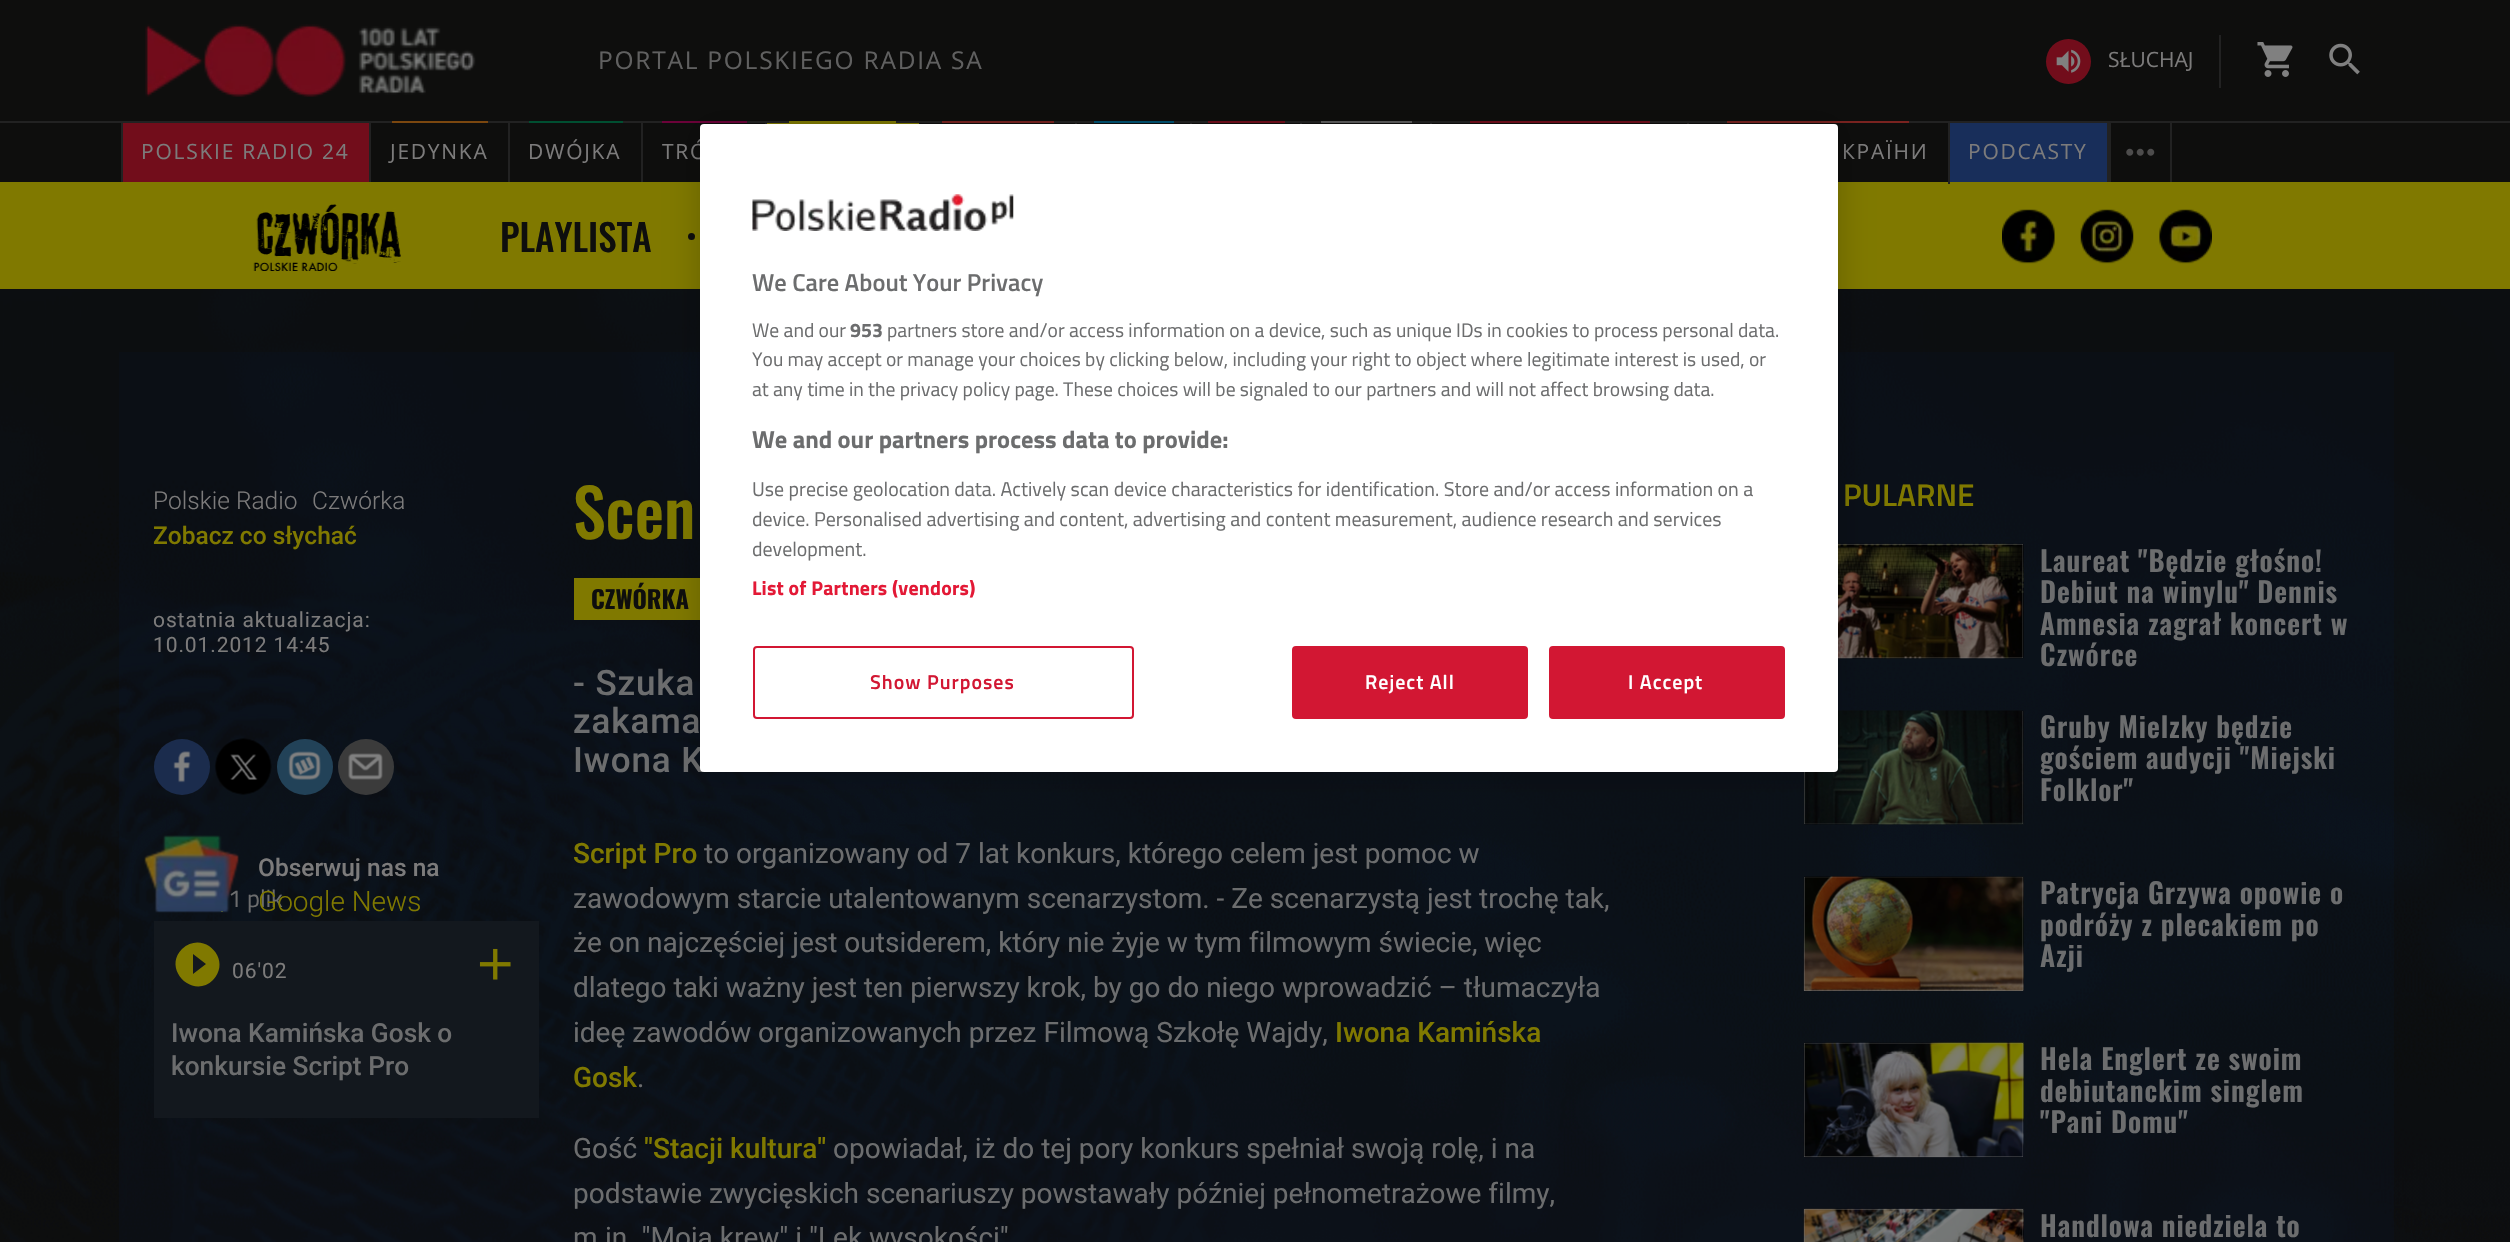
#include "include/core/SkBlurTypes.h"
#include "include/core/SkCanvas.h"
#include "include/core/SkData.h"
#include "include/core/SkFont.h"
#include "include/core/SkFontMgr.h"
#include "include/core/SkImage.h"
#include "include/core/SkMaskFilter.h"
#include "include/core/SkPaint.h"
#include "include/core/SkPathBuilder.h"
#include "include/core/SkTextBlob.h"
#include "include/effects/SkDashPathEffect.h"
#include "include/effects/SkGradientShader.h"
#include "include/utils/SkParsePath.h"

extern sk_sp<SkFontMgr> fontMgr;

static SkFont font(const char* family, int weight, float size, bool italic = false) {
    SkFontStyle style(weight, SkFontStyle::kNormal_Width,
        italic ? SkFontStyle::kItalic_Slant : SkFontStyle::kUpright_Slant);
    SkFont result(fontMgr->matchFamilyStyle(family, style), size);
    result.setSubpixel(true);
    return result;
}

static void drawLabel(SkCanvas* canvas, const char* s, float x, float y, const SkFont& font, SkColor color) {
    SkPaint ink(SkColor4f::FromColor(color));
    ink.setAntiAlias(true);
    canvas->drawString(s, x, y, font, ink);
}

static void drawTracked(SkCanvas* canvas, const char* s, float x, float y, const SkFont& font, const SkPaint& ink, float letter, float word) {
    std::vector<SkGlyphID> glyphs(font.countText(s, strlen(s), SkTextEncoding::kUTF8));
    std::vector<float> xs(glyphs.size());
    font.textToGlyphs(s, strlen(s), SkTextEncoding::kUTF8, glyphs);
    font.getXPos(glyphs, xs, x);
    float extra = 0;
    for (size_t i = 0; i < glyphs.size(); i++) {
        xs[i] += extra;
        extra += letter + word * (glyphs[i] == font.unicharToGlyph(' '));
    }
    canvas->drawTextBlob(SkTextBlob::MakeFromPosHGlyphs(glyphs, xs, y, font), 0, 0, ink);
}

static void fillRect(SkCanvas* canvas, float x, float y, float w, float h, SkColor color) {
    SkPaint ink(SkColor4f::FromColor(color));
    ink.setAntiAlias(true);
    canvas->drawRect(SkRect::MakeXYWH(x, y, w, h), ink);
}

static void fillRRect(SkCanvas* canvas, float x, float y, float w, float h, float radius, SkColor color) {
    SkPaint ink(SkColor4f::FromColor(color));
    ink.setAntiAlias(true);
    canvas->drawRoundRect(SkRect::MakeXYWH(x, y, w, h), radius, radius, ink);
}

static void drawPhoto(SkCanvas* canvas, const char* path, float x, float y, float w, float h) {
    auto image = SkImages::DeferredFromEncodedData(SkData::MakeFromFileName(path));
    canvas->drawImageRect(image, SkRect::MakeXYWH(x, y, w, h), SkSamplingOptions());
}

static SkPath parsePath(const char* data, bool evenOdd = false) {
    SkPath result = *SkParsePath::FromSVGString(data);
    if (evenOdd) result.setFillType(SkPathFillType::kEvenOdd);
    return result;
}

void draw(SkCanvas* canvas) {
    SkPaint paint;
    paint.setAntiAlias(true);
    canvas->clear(0xFF0E0E0D);
    fillRect(canvas, 0, 121, 2510, 2, 0xFF222222);
    drawPhoto(canvas, "assets/img1.png", 145, 24, 331, 73);
    SkFont font1 = font("Open Sans", 400, 24.5f);
    paint.setColor(0xFF606060);
    drawTracked(canvas, "PORTAL POLSKIEGO RADIA SA", 598, 69, font1, paint, 1.75f, 0);
    paint.setColor(0xFF720D1B);
    canvas->drawCircle(2068.5f, 61.5f, 22.5f, paint);
    drawPhoto(canvas, "assets/img2.png", 2056, 49, 25, 24);
    SkFont font2 = font("Open Sans", 400, 21);
    drawLabel(canvas, "SŁUCHAJ", 2108, 67, font2, 0xFF7C7B7B);
    fillRect(canvas, 2219, 35, 2, 53, 0xFF222222);
    drawPhoto(canvas, "assets/img3.png", 2257, 42, 36, 35);
    drawPhoto(canvas, "assets/img4.png", 2329, 43, 31, 32);
    fillRect(canvas, 121, 123, 2, 59, 0xFF222222);
    fillRect(canvas, 767, 123, 152, 1, 0xFF807A01);
    fillRect(canvas, 789, 121, 107, 2, 0xFF807A01);
    fillRect(canvas, 1075, 123, 2, 1, 0xFF222222);
    fillRect(canvas, 942, 121, 112, 2, 0xFF7A2320);
    fillRect(canvas, 1190, 123, 2, 1, 0xFF222222);
    fillRect(canvas, 1094, 121, 80, 2, 0xFF005374);
    fillRect(canvas, 1300, 123, 2, 1, 0xFF222222);
    fillRect(canvas, 1208, 121, 77, 2, 0xFF720D1B);
    fillRect(canvas, 1430, 123, 2, 1, 0xFF222222);
    fillRect(canvas, 1321, 121, 91, 2, 0xFF5E5E5E);
    fillRect(canvas, 1687, 123, 2, 1, 0xFF222222);
    fillRect(canvas, 1470, 121, 180, 2, 0xFF720D1B);
    fillRect(canvas, 123, 123, 246, 59, 0xFF720D1B);
    fillRect(canvas, 369, 123, 2, 59, 0xFF222222);
    paint.setColor(0xFF7C7B7B);
    drawTracked(canvas, "POLSKIE RADIO 24", 141, 159, font2, paint, 1.75f, 0);
    fillRect(canvas, 508, 123, 2, 59, 0xFF222222);
    fillRect(canvas, 392, 121, 96, 2, 0xFF7B470F);
    drawTracked(canvas, "JEDYNKA", 390, 159, font2, paint, 1.75f, 0);
    fillRect(canvas, 641, 123, 2, 59, 0xFF222222);
    fillRect(canvas, 529, 121, 94, 2, 0xFF004F31);
    drawTracked(canvas, "DWÓJKA", 528, 159, font2, paint, 1.75f, 0);
    fillRect(canvas, 765, 123, 2, 1, 0xFF222222);
    fillRect(canvas, 662, 121, 85, 2, 0xFF6C0239);
    drawTracked(canvas, "TRÓ", 662, 159, font2, paint, 1.75f, 0);
    fillRect(canvas, 0, 182, 2510, 107, 0xFF807900);
    fillRect(canvas, 1948, 123, 2, 61, 0xFF222222);
    fillRect(canvas, 1727, 121, 182, 2, 0xFF7A2320);
    drawTracked(canvas, "КРАЇНИ", 1842, 159, font2, paint, 1.75f, 0);
    fillRect(canvas, 1950, 123, 157, 59, 0xFF182E5A);
    fillRect(canvas, 2107, 123, 4, 59, 0xFF222222);
    drawTracked(canvas, "PODCASTY", 1968, 159, font2, paint, 1.75f, 0);
    fillRect(canvas, 2170, 123, 2, 59, 0xFF222222);
    drawPhoto(canvas, "assets/img5.png", 2126, 148, 29, 8);
    drawPhoto(canvas, "assets/img6.png", 253, 204, 148, 67);
    SkFont font3 = font("Oswald", 500, 37);
    drawLabel(canvas, "PLAYLISTA", 500, 252, font3, 0xFF0E0E0D);
    paint.setColor(0xFF0E0E0D);
    canvas->drawCircle(691.5f, 236.5f, 3.5f, paint);
    drawPhoto(canvas, "assets/img7.png", 2002, 209, 53, 55);
    drawPhoto(canvas, "assets/img8.png", 2080, 209, 54, 55);
    drawPhoto(canvas, "assets/img9.png", 2159, 209, 53, 55);
    fillRect(canvas, 119, 352, 2275, 890, 0xFF0D1014);
    drawPhoto(canvas, "assets/img10.png", 0, 289, 2510, 953);
    SkFont font4 = font("Oswald", 500, 66);
    drawLabel(canvas, "Scen", 573, 539, font4, 0xFF807900);
    fillRect(canvas, 574, 578, 126, 42, 0xFF807900);
    SkFont font5 = font("Oswald", 700, 24.5f);
    drawLabel(canvas, "CZWÓRKA", 591, 609, font5, 0xFF0E0E0D);
    SkFont font6 = font("Roboto", 400, 21);
    paint.setColor(0xFF7C7B7B);
    drawTracked(canvas, "ostatnia aktualizacja:", 153, 627, font6, paint, 0.9f, 0);
    drawTracked(canvas, "10.01.2012 14:45", 153, 652, font6, paint, 0.9f, 0);
    SkFont font7 = font("Roboto", 500, 35);
    paint.setColor(0xFF6C6D6E);
    drawTracked(canvas, "- Szuka", 573, 695, font7, paint, 0.9f, 0);
    drawTracked(canvas, "zakama", 573, 733, font7, paint, 0.9f, 0);
    drawTracked(canvas, "Iwona K", 573, 772, font7, paint, 0.9f, 0);
    paint.setColor(0xFF1B2C4D);
    canvas->drawCircle(182, 767, 28, paint);
    drawPhoto(canvas, "assets/img11.png", 173, 751, 18, 32);
    drawPhoto(canvas, "assets/img12.png", 214, 738, 58, 57);
    paint.setColor(0xFF224258);
    canvas->drawCircle(305, 767, 28, paint);
    drawPhoto(canvas, "assets/img13.png", 288, 751, 33, 29);
    paint.setColor(0xFF3B3B3B);
    canvas->drawCircle(366, 767, 28, paint);
    drawPhoto(canvas, "assets/img14.png", 348, 753, 35, 27);
    fillRect(canvas, 221, 911, 2, 1, 0xFF807900);
    SkFont font8 = font("Titillium Web", 400, 24.5f);
    drawLabel(canvas, "1 plik", 228, 907, font8, 0xFF6C6D6E);
    drawPhoto(canvas, "assets/img15.png", 144, 835, 95, 78);
    SkFont font9 = font("Roboto", 500, 24.5f);
    drawLabel(canvas, "Obserwuj nas na", 258, 876, font9, 0xFF7C7B7B);
    SkFont font10 = font("Roboto", 300, 28);
    drawLabel(canvas, "Google News", 258, 911, font10, 0xFF807900);
    fillRect(canvas, 154, 921, 385, 197, 0xFF13181E);
    paint.setColor(0xFF807900);
    canvas->drawPath(parsePath("M193 974L206 964L193 954ZM182 949C203 929 233 959 213 980C193 1000 162 969 182 949Z"), paint);
    paint.setColor(0xFF7C7B7B);
    drawTracked(canvas, "06'02", 232, 978, font6, paint, 0.9f, 0);
    drawPhoto(canvas, "assets/img16.png", 479, 948, 32, 32);
    SkFont font11 = font("Roboto", 500, 26.25f);
    drawLabel(canvas, "Iwona Kamińska Gosk o", 171, 1042, font11, 0xFF6C6D6E);
    drawLabel(canvas, "konkursie Script Pro", 171, 1075, font11, 0xFF6C6D6E);
    SkFont font12 = font("Roboto", 500, 28);
    drawLabel(canvas, "Script Pro", 573, 863, font12, 0xFF807900);
    SkFont font13 = font("Roboto", 400, 28);
    drawLabel(canvas, "to organizowany od 7 lat konkurs, którego celem jest pomoc w", 704, 863, font13, 0xFF6C6D6E);
    drawLabel(canvas, "zawodowym starcie utalentowanym scenarzystom. - Ze scenarzystą jest trochę tak,", 573, 908, font13, 0xFF6C6D6E);
    drawLabel(canvas, "że on najczęściej jest outsiderem, który nie żyje w tym filmowym świecie, więc", 573, 952, font13, 0xFF6C6D6E);
    drawLabel(canvas, "dlatego taki ważny jest ten pierwszy krok, by go do niego wprowadzić – tłumaczyła", 573, 997, font13, 0xFF6C6D6E);
    drawLabel(canvas, "ideę zawodów organizowanych przez Filmową Szkołę Wajdy,", 573, 1042, font13, 0xFF6C6D6E);
    drawLabel(canvas, "Iwona Kamińska", 1335, 1042, font12, 0xFF807900);
    drawLabel(canvas, "Gosk", 573, 1087, font12, 0xFF807900);
    drawLabel(canvas, ".", 637, 1087, font13, 0xFF6C6D6E);
    drawLabel(canvas, "Gość", 573, 1158, font13, 0xFF6C6D6E);
    drawLabel(canvas, "\"Stacji kultura\"", 644, 1158, font12, 0xFF807900);
    drawLabel(canvas, "opowiadał, iż do tej pory konkurs spełniał swoją rolę, i na", 833, 1158, font13, 0xFF6C6D6E);
    drawLabel(canvas, "podstawie zwycięskich scenariuszy powstawały później pełnometrażowe filmy,", 573, 1203, font13, 0xFF6C6D6E);
    drawLabel(canvas, "m.in. \"Moja krew\" i \"Lęk wysokości\"", 573, 1247, font13, 0xFF6C6D6E);
    SkFont font14 = font("Roboto", 300, 24.5f);
    drawLabel(canvas, "Polskie Radio", 153, 509, font14, 0xFF7C7B7B);
    drawLabel(canvas, "Czwórka", 312, 509, font14, 0xFF7C7B7B);
    drawLabel(canvas, "Zobacz co słychać", 153, 544, font9, 0xFF807900);
    SkFont font15 = font("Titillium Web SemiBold", 600, 31.5f);
    drawLabel(canvas, "PULARNE", 1843, 506, font15, 0xFF807900);
    fillRect(canvas, 1838, 544, 185, 114, 0xFF737373);
    drawPhoto(canvas, "assets/img17.png", 1838, 543, 186, 116);
    SkFont font16 = font("Oswald", 600, 28);
    paint.setColor(0xFF6C6D6E);
    drawTracked(canvas, "Laureat \"Będzie głośno!", 2040, 572, font16, paint, 0.9f, 0);
    drawTracked(canvas, "Debiut na winylu\" Dennis", 2040, 603, font16, paint, 0.9f, 0);
    drawTracked(canvas, "Amnesia zagrał koncert w", 2040, 635, font16, paint, 0.9f, 0);
    drawTracked(canvas, "Czwórce", 2040, 666, font16, paint, 0.9f, 0);
    fillRect(canvas, 1804, 711, 219, 113, 0xFF737373);
    drawPhoto(canvas, "assets/img18.png", 1803, 710, 221, 115);
    drawTracked(canvas, "Gruby Mielzky będzie", 2040, 738, font16, paint, 0.9f, 0);
    drawTracked(canvas, "gościem audycji \"Miejski", 2040, 769, font16, paint, 0.9f, 0);
    drawTracked(canvas, "Folklor\"", 2040, 801, font16, paint, 0.9f, 0);
    fillRect(canvas, 1804, 877, 219, 114, 0xFF737373);
    drawPhoto(canvas, "assets/img19.png", 1803, 876, 221, 115);
    drawTracked(canvas, "Patrycja Grzywa opowie o", 2040, 904, font16, paint, 0.9f, 0);
    drawTracked(canvas, "podróży z plecakiem po", 2040, 936, font16, paint, 0.9f, 0);
    drawTracked(canvas, "Azji", 2040, 967, font16, paint, 0.9f, 0);
    fillRect(canvas, 1804, 1043, 219, 114, 0xFF737373);
    drawPhoto(canvas, "assets/img20.png", 1803, 1042, 221, 116);
    drawTracked(canvas, "Hela Englert ze swoim", 2040, 1070, font16, paint, 0.9f, 0);
    drawTracked(canvas, "debiutanckim singlem", 2040, 1102, font16, paint, 0.9f, 0);
    drawTracked(canvas, "\"Pani Domu\"", 2040, 1133, font16, paint, 0.9f, 0);
    fillRect(canvas, 1804, 1209, 219, 33, 0xFF737373);
    drawPhoto(canvas, "assets/img21.png", 1803, 1208, 221, 34);
    drawTracked(canvas, "Handlowa niedziela to", 2040, 1237, font16, paint, 0.9f, 0);
    paint.setColor(0x33000000);
    paint.setMaskFilter(SkMaskFilter::MakeBlur(kNormal_SkBlurStyle, 16));
    canvas->drawRoundRect(SkRect::MakeXYWH(700, 124, 1138, 648), 4, 4, paint);
    paint.setMaskFilter(nullptr);
    fillRRect(canvas, 700, 124, 1138, 648, 4, 0xFFFFFFFF);
    drawPhoto(canvas, "assets/img22.png", 752, 194, 262, 37);
    SkFont font17 = font("Titillium Web SemiBold", 600, 24.5f);
    drawLabel(canvas, "We Care About Your Privacy", 752, 291, font17, 0xFF6C6D6E);
    SkFont font18 = font("Titillium Web", 400, 19.6f);
    drawLabel(canvas, "We and our", 752, 337, font18, 0xFF6C6D6E);
    SkFont font19 = font("Titillium Web", 700, 19.6f);
    drawLabel(canvas, "953", 850, 337, font19, 0xFF6C6D6E);
    drawLabel(canvas, "partners store and/or access information on a device, such as unique IDs in cookies to process personal data.", 887, 337, font18, 0xFF6C6D6E);
    drawLabel(canvas, "You may accept or manage your choices by clicking below, including your right to object where legitimate interest is used, or", 752, 366, font18, 0xFF6C6D6E);
    drawLabel(canvas, "at any time in the privacy policy page. These choices will be signaled to our partners and will not affect browsing data.", 752, 396, font18, 0xFF6C6D6E);
    SkFont font20 = font("Titillium Web", 700, 24.5f);
    drawLabel(canvas, "We and our partners process data to provide:", 752, 448, font20, 0xFF6C6D6E);
    SkFont font21 = font("Titillium Web", 400, 19.92f);
    drawLabel(canvas, "Use precise geolocation data. Actively scan device characteristics for identification. Store and/or access information on a", 752, 496, font21, 0xFF6C6D6E);
    drawLabel(canvas, "device. Personalised advertising and content, advertising and content measurement, audience research and services", 752, 526, font21, 0xFF6C6D6E);
    drawLabel(canvas, "development.", 752, 556, font21, 0xFF6C6D6E);
    SkFont font22 = font("Titillium Web", 700, 19.92f);
    paint.setColor(0xFFE31936);
    drawTracked(canvas, "List of Partners (vendors)", 752, 595, font22, paint, 0.2f, 0);
    paint.setStroke(true);
    paint.setStrokeWidth(2);
    paint.setColor(0xFFD21733);
    canvas->drawRoundRect(SkRect::MakeXYWH(754, 647, 379, 71), 3, 3, paint);
    SkFont font23 = font("Titillium Web SemiBold", 600, 19.92f);
    paint.setStroke(false);
    drawTracked(canvas, "Show Purposes", 870, 689, font23, paint, 1, 0);
    canvas->drawRoundRect(SkRect::MakeXYWH(1293, 647, 234, 71), 3, 3, paint);
    paint.setStroke(true);
    canvas->drawRoundRect(SkRect::MakeXYWH(1293, 647, 234, 71), 3, 3, paint);
    paint.setStroke(false);
    paint.setColor(0xFFFFFFFF);
    drawTracked(canvas, "Reject All", 1365, 689, font23, paint, 1, 0);
    paint.setColor(0xFFD21733);
    canvas->drawRoundRect(SkRect::MakeXYWH(1550, 647, 234, 71), 3, 3, paint);
    paint.setStroke(true);
    canvas->drawRoundRect(SkRect::MakeXYWH(1550, 647, 234, 71), 3, 3, paint);
    paint.setStroke(false);
    paint.setColor(0xFFFFFFFF);
    drawTracked(canvas, "I Accept", 1628, 689, font23, paint, 1, 0);
}
